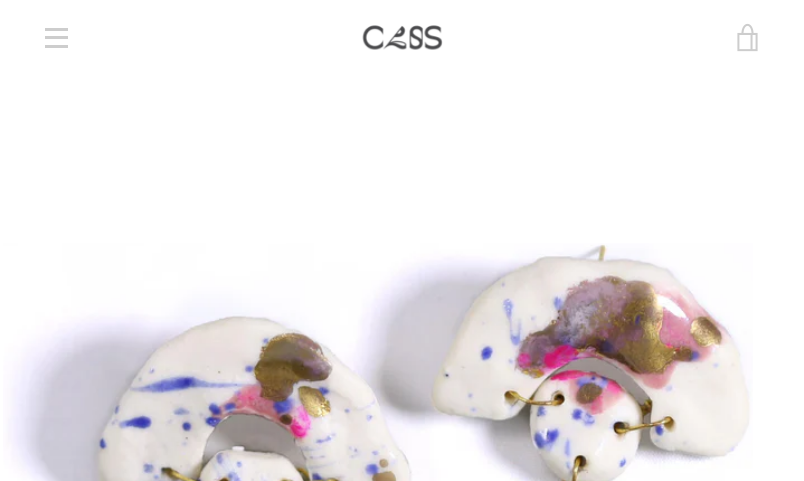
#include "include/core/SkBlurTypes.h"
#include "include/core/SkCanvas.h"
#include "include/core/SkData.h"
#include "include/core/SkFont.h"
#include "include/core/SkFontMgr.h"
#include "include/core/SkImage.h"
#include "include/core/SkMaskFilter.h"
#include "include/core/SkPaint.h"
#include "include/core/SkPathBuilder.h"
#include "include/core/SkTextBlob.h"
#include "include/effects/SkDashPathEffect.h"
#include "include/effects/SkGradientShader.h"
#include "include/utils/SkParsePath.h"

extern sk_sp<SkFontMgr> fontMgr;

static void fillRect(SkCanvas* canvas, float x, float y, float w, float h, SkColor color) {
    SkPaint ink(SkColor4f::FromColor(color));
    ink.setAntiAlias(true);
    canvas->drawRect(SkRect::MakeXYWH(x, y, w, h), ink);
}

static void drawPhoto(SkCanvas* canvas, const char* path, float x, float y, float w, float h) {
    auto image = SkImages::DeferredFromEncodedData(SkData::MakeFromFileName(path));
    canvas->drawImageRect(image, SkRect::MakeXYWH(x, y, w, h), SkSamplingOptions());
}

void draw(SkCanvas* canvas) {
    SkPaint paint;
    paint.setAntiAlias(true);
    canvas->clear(0xFFFFFFFF);
    fillRect(canvas, 45, 28, 23, 3, 0xFFCDCDCD);
    fillRect(canvas, 45, 36, 23, 3, 0xFFCDCDCD);
    fillRect(canvas, 45, 45, 23, 3, 0xFFCDCDCD);
    drawPhoto(canvas, "assets/img1.png", 362, 25, 81, 25);
    drawPhoto(canvas, "assets/img2.png", 737, 23, 21, 29);
    drawPhoto(canvas, "assets/img3.png", 3, 243, 750, 238);
}
